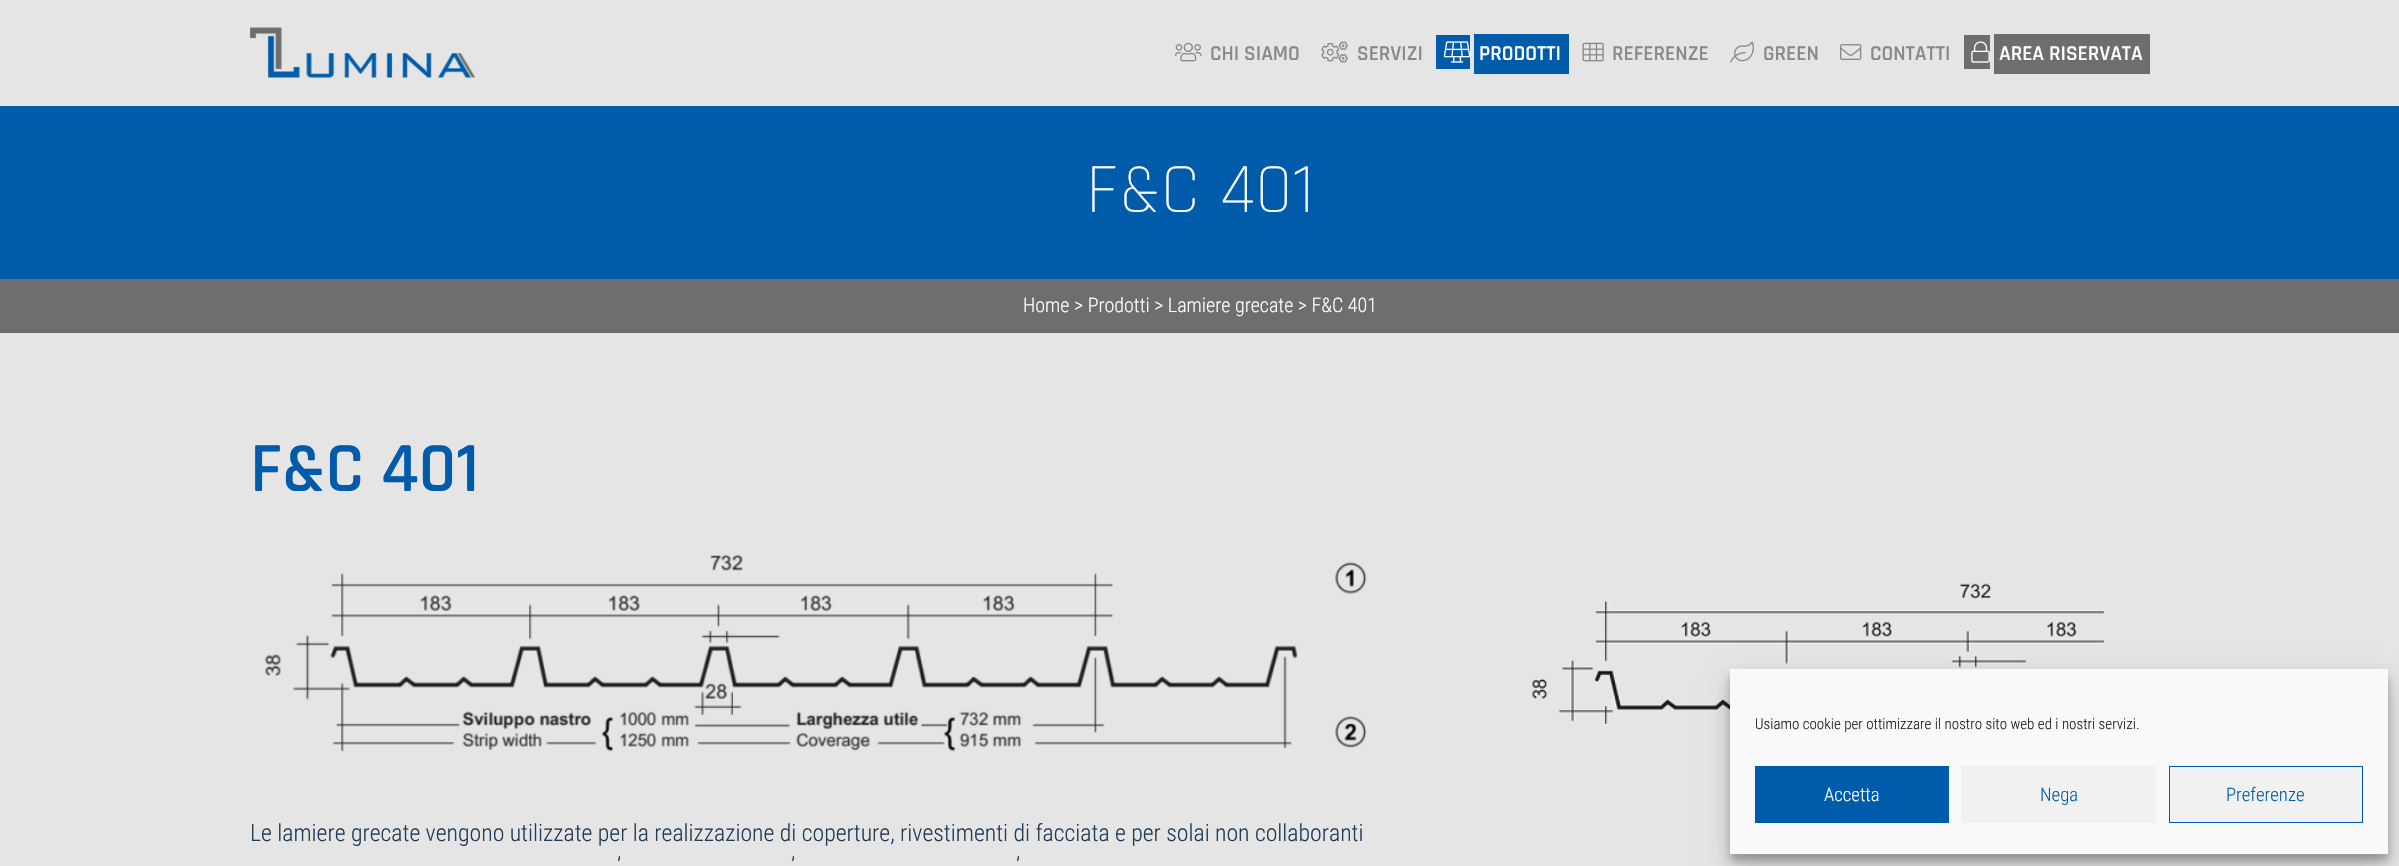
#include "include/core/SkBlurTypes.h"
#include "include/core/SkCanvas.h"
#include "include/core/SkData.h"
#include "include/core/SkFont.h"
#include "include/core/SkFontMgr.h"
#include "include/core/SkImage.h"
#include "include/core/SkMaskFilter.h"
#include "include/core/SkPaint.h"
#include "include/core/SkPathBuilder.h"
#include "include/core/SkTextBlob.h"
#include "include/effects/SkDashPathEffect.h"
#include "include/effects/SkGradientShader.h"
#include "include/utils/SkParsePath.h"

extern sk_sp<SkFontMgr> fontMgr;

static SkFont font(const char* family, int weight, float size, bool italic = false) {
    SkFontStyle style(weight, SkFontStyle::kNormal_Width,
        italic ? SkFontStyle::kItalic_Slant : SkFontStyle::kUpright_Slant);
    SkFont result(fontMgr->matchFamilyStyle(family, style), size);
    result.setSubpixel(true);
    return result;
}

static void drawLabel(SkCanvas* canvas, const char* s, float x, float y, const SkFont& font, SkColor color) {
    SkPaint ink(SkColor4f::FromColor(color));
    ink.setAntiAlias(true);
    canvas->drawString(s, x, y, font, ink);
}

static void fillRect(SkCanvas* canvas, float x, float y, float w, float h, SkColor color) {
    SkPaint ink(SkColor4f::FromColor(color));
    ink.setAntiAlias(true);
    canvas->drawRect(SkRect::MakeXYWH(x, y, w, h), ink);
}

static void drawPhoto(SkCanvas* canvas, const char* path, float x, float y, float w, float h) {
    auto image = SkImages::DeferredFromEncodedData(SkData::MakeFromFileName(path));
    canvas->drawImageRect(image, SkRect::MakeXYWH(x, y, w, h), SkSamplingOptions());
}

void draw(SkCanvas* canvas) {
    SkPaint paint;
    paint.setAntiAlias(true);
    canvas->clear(0xFFE5E5E5);
    drawPhoto(canvas, "assets/img1.png", 250, 27, 225, 51);
    drawPhoto(canvas, "assets/img2.png", 1175, 42, 27, 20);
    SkFont font1 = font("Rajdhani", 600, 21.25f);
    drawLabel(canvas, "CHI SIAMO", 1210, 60, font1, 0xFF898989);
    drawPhoto(canvas, "assets/img3.png", 1321, 41, 27, 22);
    drawLabel(canvas, "SERVIZI", 1357, 60, font1, 0xFF898989);
    fillRect(canvas, 1436, 35, 34, 34, 0xFF005CAA);
    fillRect(canvas, 1474, 34, 95, 40, 0xFF005CAA);
    drawPhoto(canvas, "assets/img4.png", 1443, 41, 28, 22);
    drawLabel(canvas, "PRODOTTI", 1479, 60, font1, 0xFFFFFFFF);
    drawPhoto(canvas, "assets/img5.png", 1582, 42, 22, 20);
    drawLabel(canvas, "REFERENZE", 1612, 60, font1, 0xFF898989);
    drawPhoto(canvas, "assets/img6.png", 1730, 41, 24, 22);
    drawLabel(canvas, "GREEN", 1763, 60, font1, 0xFF898989);
    drawPhoto(canvas, "assets/img7.png", 1840, 44, 22, 16);
    drawLabel(canvas, "CONTATTI", 1870, 60, font1, 0xFF898989);
    fillRect(canvas, 1964, 35, 26, 34, 0xFF6D6E70);
    fillRect(canvas, 1994, 34, 156, 40, 0xFF6D6E70);
    drawPhoto(canvas, "assets/img8.png", 1971, 41, 19, 22);
    drawLabel(canvas, "AREA RISERVATA", 1999, 60, font1, 0xFFFFFFFF);
    fillRect(canvas, 0, 106, 2399, 173, 0xFF005CAA);
    SkFont font2 = font("Rajdhani", 300, 71);
    drawLabel(canvas, "F&C 401", 1086, 212, font2, 0xFFFFFFFF);
    fillRect(canvas, 0, 279, 2399, 54, 0xFF6D6E70);
    SkFont font3 = font("Roboto Condensed", 300, 20);
    drawLabel(canvas, "Home > Prodotti > Lamiere grecate > F&C 401", 1023, 312, font3, 0xFFFFFFFF);
    SkFont font4 = font("Rajdhani", 600, 71);
    drawLabel(canvas, "F&C 401", 250, 491, font4, 0xFF005CAA);
    drawPhoto(canvas, "assets/img9.png", 264, 554, 1103, 198);
    SkFont font5 = font("Roboto Condensed", 300, 23.75f);
    drawLabel(canvas, "Le lamiere grecate vengono utilizzate per la realizzazione di coperture, rivestimenti di facciata e per solai non collaboranti", 250, 841, font5, 0xFF213B55);
    drawLabel(canvas, "’", 617, 874, font5, 0xFF213B55);
    drawLabel(canvas, "’", 791, 874, font5, 0xFF213B55);
    drawLabel(canvas, "’", 1016, 874, font5, 0xFF213B55);
    drawPhoto(canvas, "assets/img10.png", 1531, 582, 574, 155);
    paint.setColor(0x3B000000);
    paint.setMaskFilter(SkMaskFilter::MakeBlur(kNormal_SkBlurStyle, 4));
    canvas->drawRect(SkRect::MakeXYWH(1730, 676, 658, 185), paint);
    paint.setMaskFilter(nullptr);
    paint.setColor(0x30000000);
    paint.setMaskFilter(SkMaskFilter::MakeBlur(kNormal_SkBlurStyle, 12.5f));
    canvas->drawRect(SkRect::MakeXYWH(1730, 681, 658, 185), paint);
    paint.setMaskFilter(nullptr);
    fillRect(canvas, 1730, 669, 658, 185, 0xFFF9F9F9);
    SkFont font6 = font("Roboto Condensed", 300, 15);
    drawLabel(canvas, "Usiamo cookie per ottimizzare il nostro sito web ed i nostri servizi.", 1755, 729, font6, 0xFF191E23);
    fillRect(canvas, 1755, 766, 194, 57, 0xFF005CAA);
    SkFont font7 = font("Roboto Condensed", 300, 18.75f);
    drawLabel(canvas, "Accetta", 1824, 801, font7, 0xFFFFFFFF);
    fillRect(canvas, 1961, 766, 195, 57, 0xFFF1F1F1);
    drawLabel(canvas, "Nega", 2040, 801, font7, 0xFF005CAA);
    paint.setColor(0xFFF1F1F1);
    canvas->drawRect(SkRect::MakeXYWH(2169.5f, 766.5f, 193, 56), paint);
    paint.setStroke(true);
    paint.setStrokeWidth(1);
    paint.setColor(0xFF005CAA);
    canvas->drawRect(SkRect::MakeXYWH(2169.5f, 766.5f, 193, 56), paint);
    drawLabel(canvas, "Preferenze", 2226, 801, font7, 0xFF005CAA);
}
